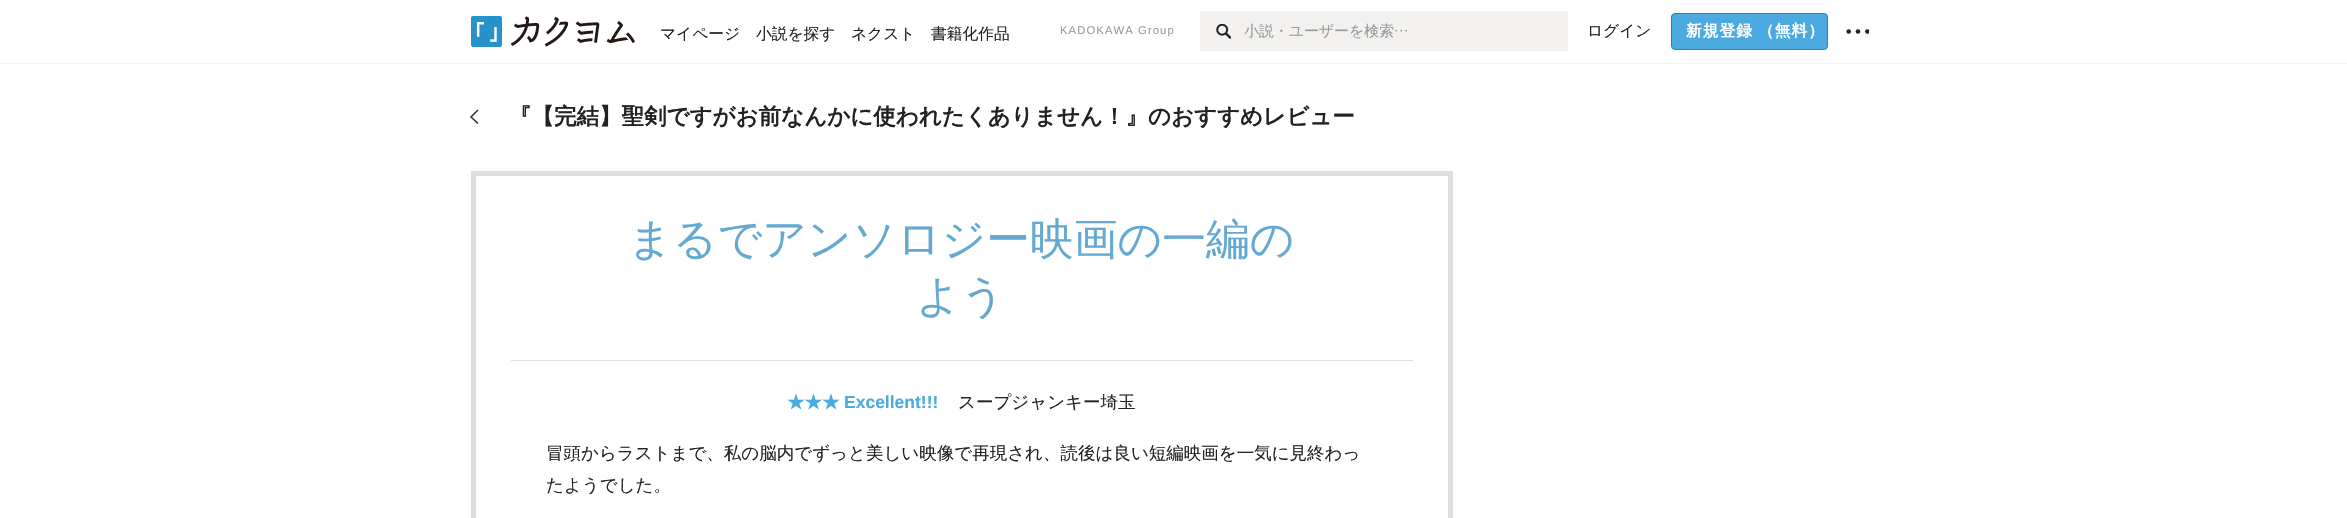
#include "include/core/SkBlurTypes.h"
#include "include/core/SkCanvas.h"
#include "include/core/SkData.h"
#include "include/core/SkFont.h"
#include "include/core/SkFontMgr.h"
#include "include/core/SkImage.h"
#include "include/core/SkMaskFilter.h"
#include "include/core/SkPaint.h"
#include "include/core/SkPathBuilder.h"
#include "include/core/SkTextBlob.h"
#include "include/effects/SkDashPathEffect.h"
#include "include/effects/SkGradientShader.h"
#include "include/utils/SkParsePath.h"

extern sk_sp<SkFontMgr> fontMgr;

static SkFont font(const char* family, int weight, float size, bool italic = false) {
    SkFontStyle style(weight, SkFontStyle::kNormal_Width,
        italic ? SkFontStyle::kItalic_Slant : SkFontStyle::kUpright_Slant);
    SkFont result(fontMgr->matchFamilyStyle(family, style), size);
    result.setSubpixel(true);
    return result;
}

static void drawLabel(SkCanvas* canvas, const char* s, float x, float y, const SkFont& font, SkColor color) {
    SkPaint ink(SkColor4f::FromColor(color));
    ink.setAntiAlias(true);
    canvas->drawString(s, x, y, font, ink);
}

static void drawTracked(SkCanvas* canvas, const char* s, float x, float y, const SkFont& font, const SkPaint& ink, float letter, float word) {
    std::vector<SkGlyphID> glyphs(font.countText(s, strlen(s), SkTextEncoding::kUTF8));
    std::vector<float> xs(glyphs.size());
    font.textToGlyphs(s, strlen(s), SkTextEncoding::kUTF8, glyphs);
    font.getXPos(glyphs, xs, x);
    float extra = 0;
    for (size_t i = 0; i < glyphs.size(); i++) {
        xs[i] += extra;
        extra += letter + word * (glyphs[i] == font.unicharToGlyph(' '));
    }
    canvas->drawTextBlob(SkTextBlob::MakeFromPosHGlyphs(glyphs, xs, y, font), 0, 0, ink);
}

static void fillRect(SkCanvas* canvas, float x, float y, float w, float h, SkColor color) {
    SkPaint ink(SkColor4f::FromColor(color));
    ink.setAntiAlias(true);
    canvas->drawRect(SkRect::MakeXYWH(x, y, w, h), ink);
}

static void drawPhoto(SkCanvas* canvas, const char* path, float x, float y, float w, float h) {
    auto image = SkImages::DeferredFromEncodedData(SkData::MakeFromFileName(path));
    canvas->drawImageRect(image, SkRect::MakeXYWH(x, y, w, h), SkSamplingOptions());
}

static SkPath parsePath(const char* data, bool evenOdd = false) {
    SkPath result = *SkParsePath::FromSVGString(data);
    if (evenOdd) result.setFillType(SkPathFillType::kEvenOdd);
    return result;
}

void draw(SkCanvas* canvas) {
    SkPaint paint;
    paint.setAntiAlias(true);
    canvas->clear(0xFFFFFFFF);
    paint.setColor(0xFFF2F2F2);
    canvas->drawPath(parsePath("M0 62V64H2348V1V62Z"), paint);
    fillRect(canvas, 0, 62, 2347, 1, 0xFFFFFFFF);
    drawPhoto(canvas, "assets/img1.png", 471, 16, 164, 31);
    SkFont font1 = font("WenQuanYi Zen Hei", 500, 15.75f);
    drawLabel(canvas, "マイページ", 660, 39, font1, 0xFF222222);
    drawLabel(canvas, "小説を探す", 756, 39, font1, 0xFF222222);
    drawLabel(canvas, "ネクスト", 851, 39, font1, 0xFF222222);
    drawLabel(canvas, "書籍化作品", 931, 39, font1, 0xFF222222);
    SkFont font2 = font("Liberation Sans", 400, 11.25f);
    paint.setColor(0xFF999999);
    drawTracked(canvas, "KADOKAWA Group", 1060, 34, font2, paint, 1.1f, 0);
    fillRect(canvas, 1200, 11, 368, 40, 0xFFF2F1F0);
    drawPhoto(canvas, "assets/img2.png", 1216, 24, 15, 15);
    SkFont font3 = font("WenQuanYi Zen Hei", 500, 14.9f);
    drawLabel(canvas, "小説・ユーザーを検索", 1244, 36, font3, 0xFF999999);
    drawPhoto(canvas, "assets/img3.png", 1395, 29, 12, 3);
    drawLabel(canvas, "ログイン", 1587, 36, font1, 0xFF222222);
    paint.setColor(0xFF4BAAE0);
    canvas->drawRoundRect(SkRect::MakeXYWH(1671.5f, 13.5f, 156, 36), 3.5f, 3.5f, paint);
    paint.setStroke(true);
    paint.setStrokeWidth(1);
    paint.setColor(0xFF0990CC);
    canvas->drawRoundRect(SkRect::MakeXYWH(1671.5f, 13.5f, 156, 36), 3.5f, 3.5f, paint);
    SkFont font4 = font("WenQuanYi Zen Hei", 700, 15.75f);
    paint.setStroke(false);
    paint.setColor(0xFFFFFFFF);
    drawTracked(canvas, "新規登録", 1686, 36, font4, paint, 1, 0);
    drawTracked(canvas, "（無料）", 1758, 36, font4, paint, 1, 0);
    paint.setColor(0xFF222222);
    canvas->drawCircle(1848.7f, 31.5f, 2.3f, paint);
    canvas->drawCircle(1858, 31.5f, 2.3f, paint);
    canvas->save();
    canvas->clipRect(SkRect::MakeXYWH(1846, 20, 23, 23));
    canvas->drawCircle(1867.3f, 31.5f, 2.3f, paint);
    canvas->restore();
    paint.setStroke(true);
    paint.setStrokeWidth(1.4f);
    canvas->drawPath(parsePath("M478 123.5L471 117L478 110"), paint);
    SkFont font5 = font("WenQuanYi Zen Hei", 700, 22.5f);
    drawLabel(canvas, "『【完結】聖剣ですがお前なんかに使われたくありません！』のおすすめレビュー", 509, 124, font5, 0xFF222222);
    paint.setStrokeWidth(5);
    paint.setColor(0xFFDDDDDD);
    canvas->drawRect(SkRect::MakeXYWH(473.5f, 173.5f, 977, 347), paint);
    fillRect(canvas, 511, 360, 902, 1, 0xFFDDDDDD);
    SkFont font6 = font("WenQuanYi Zen Hei", 500, 43.75f);
    drawLabel(canvas, "まるでアンソロジー映画の一編の", 628, 254, font6, 0xFF65A8D1);
    drawLabel(canvas, "よう", 916, 311, font6, 0xFF65A8D1);
    SkFont font7 = font("WenQuanYi Zen Hei", 700, 17.5f);
    drawLabel(canvas, "★★★", 787, 408, font7, 0xFF4BAAE0);
    SkFont font8 = font("Liberation Sans", 700, 17.5f);
    drawLabel(canvas, "Excellent!!!", 844, 408, font8, 0xFF4BAAE0);
    SkFont font9 = font("WenQuanYi Zen Hei", 500, 17.5f);
    drawLabel(canvas, "スープジャンキー埼玉", 958, 408, font9, 0xFF222222);
    drawLabel(canvas, "冒頭からラストまで、私の脳内でずっと美しい映像で再現され、読後は良い短編映画を一気に見終わっ", 546, 459, font9, 0xFF222222);
    drawLabel(canvas, "たようでした。", 546, 491, font9, 0xFF222222);
}
